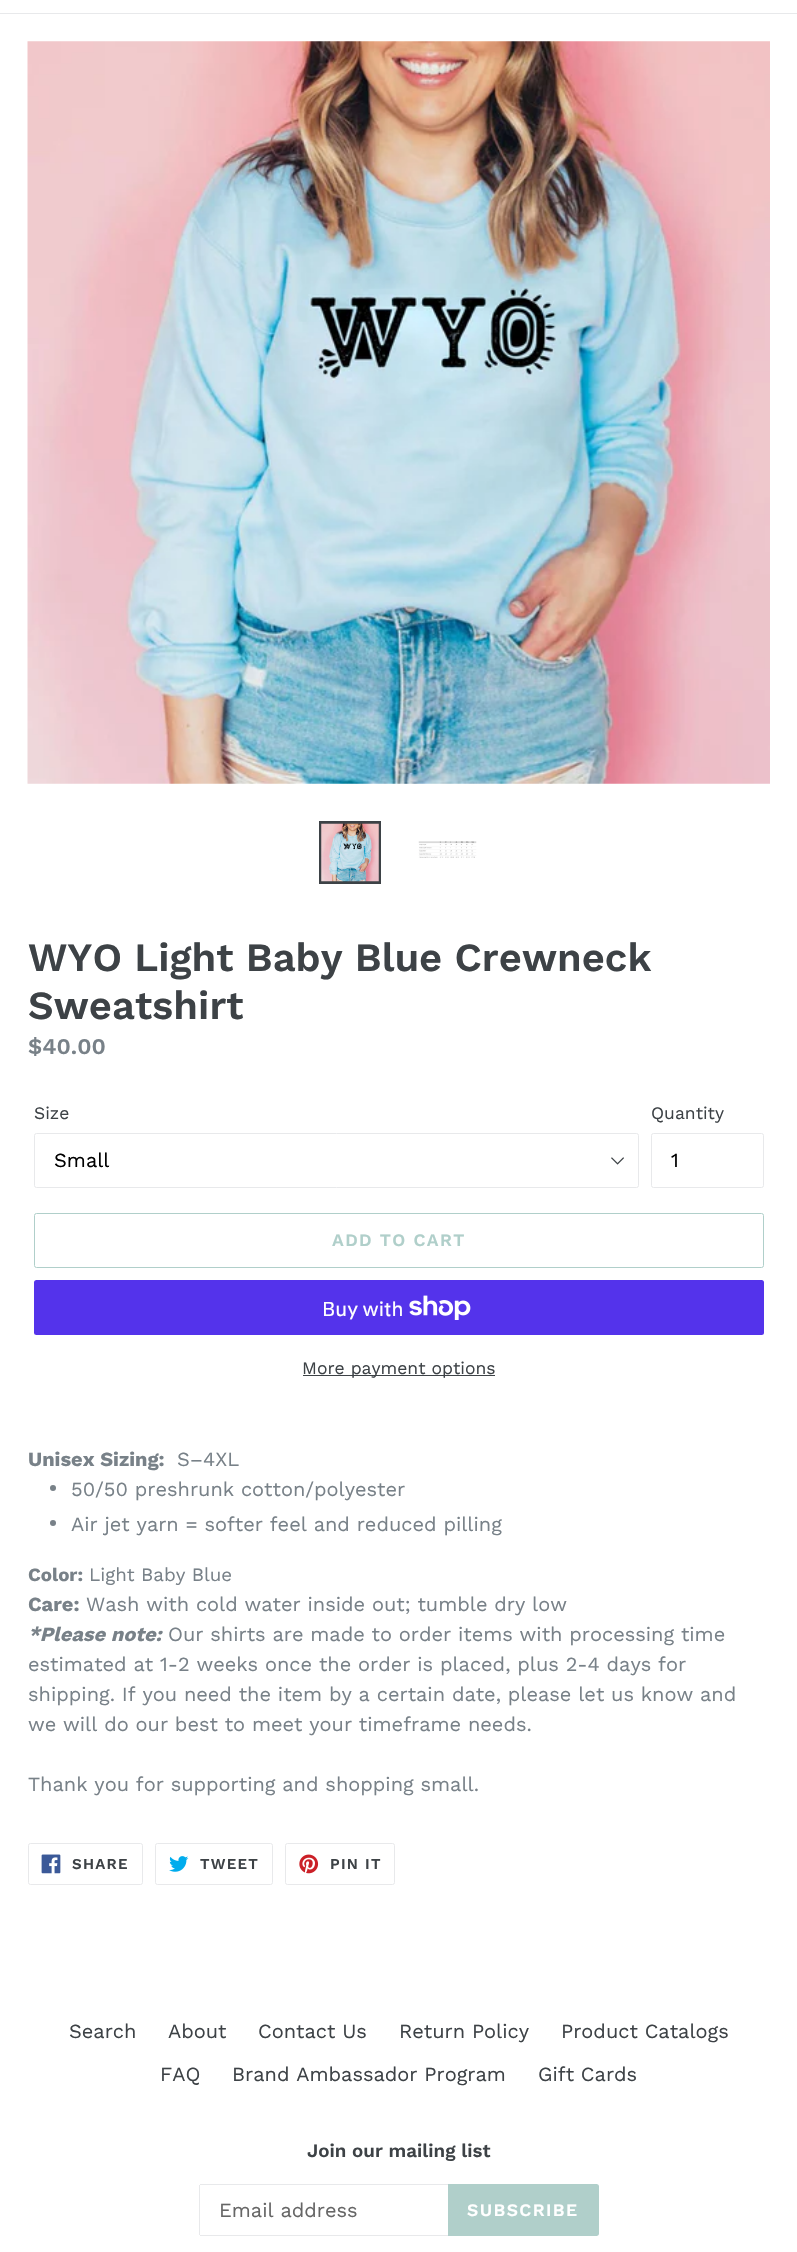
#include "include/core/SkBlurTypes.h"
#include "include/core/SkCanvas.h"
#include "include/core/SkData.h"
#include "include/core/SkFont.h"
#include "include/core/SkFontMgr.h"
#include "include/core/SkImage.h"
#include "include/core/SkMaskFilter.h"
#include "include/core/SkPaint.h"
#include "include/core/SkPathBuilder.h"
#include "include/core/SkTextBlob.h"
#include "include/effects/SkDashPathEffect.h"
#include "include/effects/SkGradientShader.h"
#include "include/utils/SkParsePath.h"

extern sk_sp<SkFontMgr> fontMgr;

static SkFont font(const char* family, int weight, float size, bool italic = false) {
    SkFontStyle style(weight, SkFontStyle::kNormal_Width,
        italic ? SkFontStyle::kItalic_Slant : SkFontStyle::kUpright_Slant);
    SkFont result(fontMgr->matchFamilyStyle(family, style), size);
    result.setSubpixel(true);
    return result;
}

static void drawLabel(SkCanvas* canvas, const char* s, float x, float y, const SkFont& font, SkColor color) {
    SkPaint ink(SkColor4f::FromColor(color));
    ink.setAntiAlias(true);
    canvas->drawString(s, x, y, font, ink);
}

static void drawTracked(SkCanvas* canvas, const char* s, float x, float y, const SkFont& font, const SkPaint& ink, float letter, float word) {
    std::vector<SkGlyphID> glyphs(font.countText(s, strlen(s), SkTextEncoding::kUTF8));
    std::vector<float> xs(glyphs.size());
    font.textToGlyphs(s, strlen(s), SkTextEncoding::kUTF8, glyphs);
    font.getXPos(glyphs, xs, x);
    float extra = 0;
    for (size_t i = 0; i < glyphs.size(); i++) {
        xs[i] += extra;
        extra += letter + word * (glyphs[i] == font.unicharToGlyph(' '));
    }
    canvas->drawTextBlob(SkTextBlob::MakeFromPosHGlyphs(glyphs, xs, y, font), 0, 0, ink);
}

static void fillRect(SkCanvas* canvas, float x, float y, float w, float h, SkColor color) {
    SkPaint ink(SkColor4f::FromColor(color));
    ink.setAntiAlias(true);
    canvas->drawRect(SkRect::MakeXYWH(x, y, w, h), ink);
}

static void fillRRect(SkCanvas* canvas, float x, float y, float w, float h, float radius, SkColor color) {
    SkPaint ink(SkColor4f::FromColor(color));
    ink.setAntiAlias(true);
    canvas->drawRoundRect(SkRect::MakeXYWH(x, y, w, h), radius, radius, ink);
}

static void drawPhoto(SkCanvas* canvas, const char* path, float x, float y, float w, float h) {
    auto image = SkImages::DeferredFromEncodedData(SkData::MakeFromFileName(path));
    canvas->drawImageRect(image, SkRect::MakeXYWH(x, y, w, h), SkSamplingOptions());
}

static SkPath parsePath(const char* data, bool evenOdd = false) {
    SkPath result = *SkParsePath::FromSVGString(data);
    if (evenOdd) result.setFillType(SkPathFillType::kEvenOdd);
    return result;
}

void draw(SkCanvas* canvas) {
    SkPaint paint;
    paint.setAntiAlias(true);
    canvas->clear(0xFFFFFFFF);
    fillRect(canvas, 0, 13, 797, 1, 0xFFE8E9EB);
    drawPhoto(canvas, "assets/img1.png", 27, 41, 743, 743);
    paint.setStroke(true);
    paint.setStrokeWidth(3);
    paint.setColor(0xFF3D4246);
    canvas->drawRect(SkRect::MakeXYWH(320.5f, 822.5f, 59, 60), paint);
    drawPhoto(canvas, "assets/img2.png", 321, 823, 58, 59);
    drawPhoto(canvas, "assets/img3.png", 418, 841, 59, 17);
    SkFont font1 = font("Work Sans", 600, 40);
    drawLabel(canvas, "WYO Light Baby Blue Crewneck", 28, 971, font1, 0xFF3D4246);
    drawLabel(canvas, "Sweatshirt", 28, 1019, font1, 0xFF3D4246);
    SkFont font2 = font("Work Sans", 600, 22.5f);
    drawLabel(canvas, "$40.00", 28, 1054, font2, 0xFF788188);
    SkFont font3 = font("Work Sans", 400, 17.5f);
    drawLabel(canvas, "Size", 34, 1119, font3, 0xFF3D4246);
    drawPhoto(canvas, "assets/img4.png", 611, 1157, 13, 8);
    paint.setStrokeWidth(1);
    paint.setColor(0xFFE8E9EB);
    canvas->drawRoundRect(SkRect::MakeXYWH(34.5f, 1133.5f, 604, 54), 2, 2, paint);
    SkFont font4 = font("Work Sans", 400, 20);
    drawLabel(canvas, "Small", 54, 1167, font4, 0xFF000000);
    drawLabel(canvas, "Quantity", 651, 1119, font3, 0xFF3D4246);
    canvas->drawRoundRect(SkRect::MakeXYWH(651.5f, 1133.5f, 112, 54), 2, 2, paint);
    drawLabel(canvas, "1", 671, 1167, font4, 0xFF000000);
    paint.setColor(0xFFB0CFCA);
    canvas->drawRoundRect(SkRect::MakeXYWH(34.5f, 1213.5f, 729, 54), 2, 2, paint);
    SkFont font5 = font("Work Sans", 600, 17.5f);
    paint.setStroke(false);
    drawTracked(canvas, "ADD TO CART", 332, 1246, font5, paint, 1.4f, 0);
    fillRRect(canvas, 34, 1280, 730, 55, 2.5f, 0xFF5433EB);
    SkFont font6 = font("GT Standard", 400, 20);
    drawLabel(canvas, "Buy with", 322, 1316, font6, 0xFFFFFFFF);
    drawPhoto(canvas, "assets/img5.png", 409, 1295, 62, 25);
    fillRect(canvas, 303, 1375, 192, 1, 0xFF3D4246);
    drawLabel(canvas, "More payment options", 302, 1374, font3, 0xFF3D4246);
    SkFont font7 = font("Work Sans", 700, 20);
    drawLabel(canvas, "Unisex Sizing:", 28, 1466, font7, 0xFF788188);
    drawLabel(canvas, "S–4XL", 177, 1466, font4, 0xFF788188);
    paint.setColor(0xFF788188);
    canvas->drawCircle(53, 1488, 3, paint);
    drawLabel(canvas, "50/50 preshrunk cotton/polyester", 71, 1496, font4, 0xFF788188);
    canvas->drawCircle(53, 1523, 3, paint);
    drawLabel(canvas, "Air jet yarn = softer feel and reduced pilling", 71, 1531, font4, 0xFF788188);
    SkFont font8 = font("Work Sans", 700, 18.75f);
    drawLabel(canvas, "Color:", 28, 1581, font8, 0xFF788188);
    SkFont font9 = font("Work Sans", 400, 18.75f);
    drawLabel(canvas, "Light Baby Blue", 89, 1581, font9, 0xFF788188);
    drawLabel(canvas, "Care:", 28, 1611, font7, 0xFF788188);
    drawLabel(canvas, "Wash with cold water inside out; tumble dry low", 86, 1611, font4, 0xFF788188);
    SkFont font10 = font("Work Sans", 700, 20, true);
    drawLabel(canvas, "*Please note:", 28, 1641, font10, 0xFF788188);
    drawLabel(canvas, "Our shirts are made to order items with processing time", 168, 1641, font4, 0xFF788188);
    drawLabel(canvas, "estimated at 1-2 weeks once the order is placed, plus 2-4 days for", 28, 1671, font4, 0xFF788188);
    drawLabel(canvas, "shipping. If you need the item by a certain date, please let us know and", 28, 1701, font4, 0xFF788188);
    drawLabel(canvas, "we will do our best to meet your timeframe needs.", 28, 1731, font4, 0xFF788188);
    drawLabel(canvas, "Thank you for supporting and shopping small.", 28, 1791, font4, 0xFF788188);
    paint.setStroke(true);
    paint.setColor(0xFFE8E9EB);
    canvas->drawRoundRect(SkRect::MakeXYWH(28.5f, 1843.5f, 114, 41), 2, 2, paint);
    drawPhoto(canvas, "assets/img6.png", 41, 1854, 20, 20);
    SkFont font11 = font("Work Sans", 600, 15);
    paint.setStroke(false);
    paint.setColor(0xFF3D4246);
    drawTracked(canvas, "SHARE", 72, 1869, font11, paint, 1.25f, 0);
    paint.setStroke(true);
    paint.setColor(0xFFE8E9EB);
    canvas->drawRoundRect(SkRect::MakeXYWH(155.5f, 1843.5f, 117, 41), 2, 2, paint);
    drawPhoto(canvas, "assets/img7.png", 169, 1856, 20, 16);
    paint.setStroke(false);
    paint.setColor(0xFF3D4246);
    drawTracked(canvas, "TWEET", 200, 1869, font11, paint, 1.25f, 0);
    paint.setStroke(true);
    paint.setColor(0xFFE8E9EB);
    canvas->drawRoundRect(SkRect::MakeXYWH(285.5f, 1843.5f, 109, 41), 2, 2, paint);
    drawPhoto(canvas, "assets/img8.png", 299, 1854, 20, 20);
    paint.setStroke(false);
    paint.setColor(0xFF3D4246);
    drawTracked(canvas, "PIN IT", 330, 1869, font11, paint, 1.25f, 0);
    drawLabel(canvas, "Search", 69, 2038, font4, 0xFF3D4246);
    drawLabel(canvas, "About", 168, 2038, font4, 0xFF3D4246);
    drawLabel(canvas, "Contact Us", 258, 2038, font4, 0xFF3D4246);
    drawLabel(canvas, "Return Policy", 399, 2038, font4, 0xFF3D4246);
    drawLabel(canvas, "Product Catalogs", 561, 2038, font4, 0xFF3D4246);
    drawLabel(canvas, "FAQ", 160, 2081, font4, 0xFF3D4246);
    drawLabel(canvas, "Brand Ambassador Program", 232, 2081, font4, 0xFF3D4246);
    drawLabel(canvas, "Gift Cards", 538, 2081, font4, 0xFF3D4246);
    SkFont font12 = font("Work Sans", 600, 18.75f);
    drawLabel(canvas, "Join our mailing list", 307, 2157, font12, 0xFF3D4246);
    fillRect(canvas, 200, 2184, 248, 1, 0xFFE8E9EB);
    fillRect(canvas, 200, 2235, 248, 1, 0xFFE8E9EB);
    fillRect(canvas, 199, 2185, 1, 50, 0xFFE8E9EB);
    drawLabel(canvas, "Email address", 219, 2217, font4, 0xFF666666);
    paint.setColor(0xFFB0CFCA);
    canvas->drawPath(parsePath("M448 2184H596.5C598 2184 599 2185 599 2186.5V2233.5C599 2235 598 2236 596.5 2236H448Z"), paint);
    paint.setColor(0xFFFFFFFF);
    drawTracked(canvas, "SUBSCRIBE", 467, 2216, font5, paint, 1.4f, 0);
}
